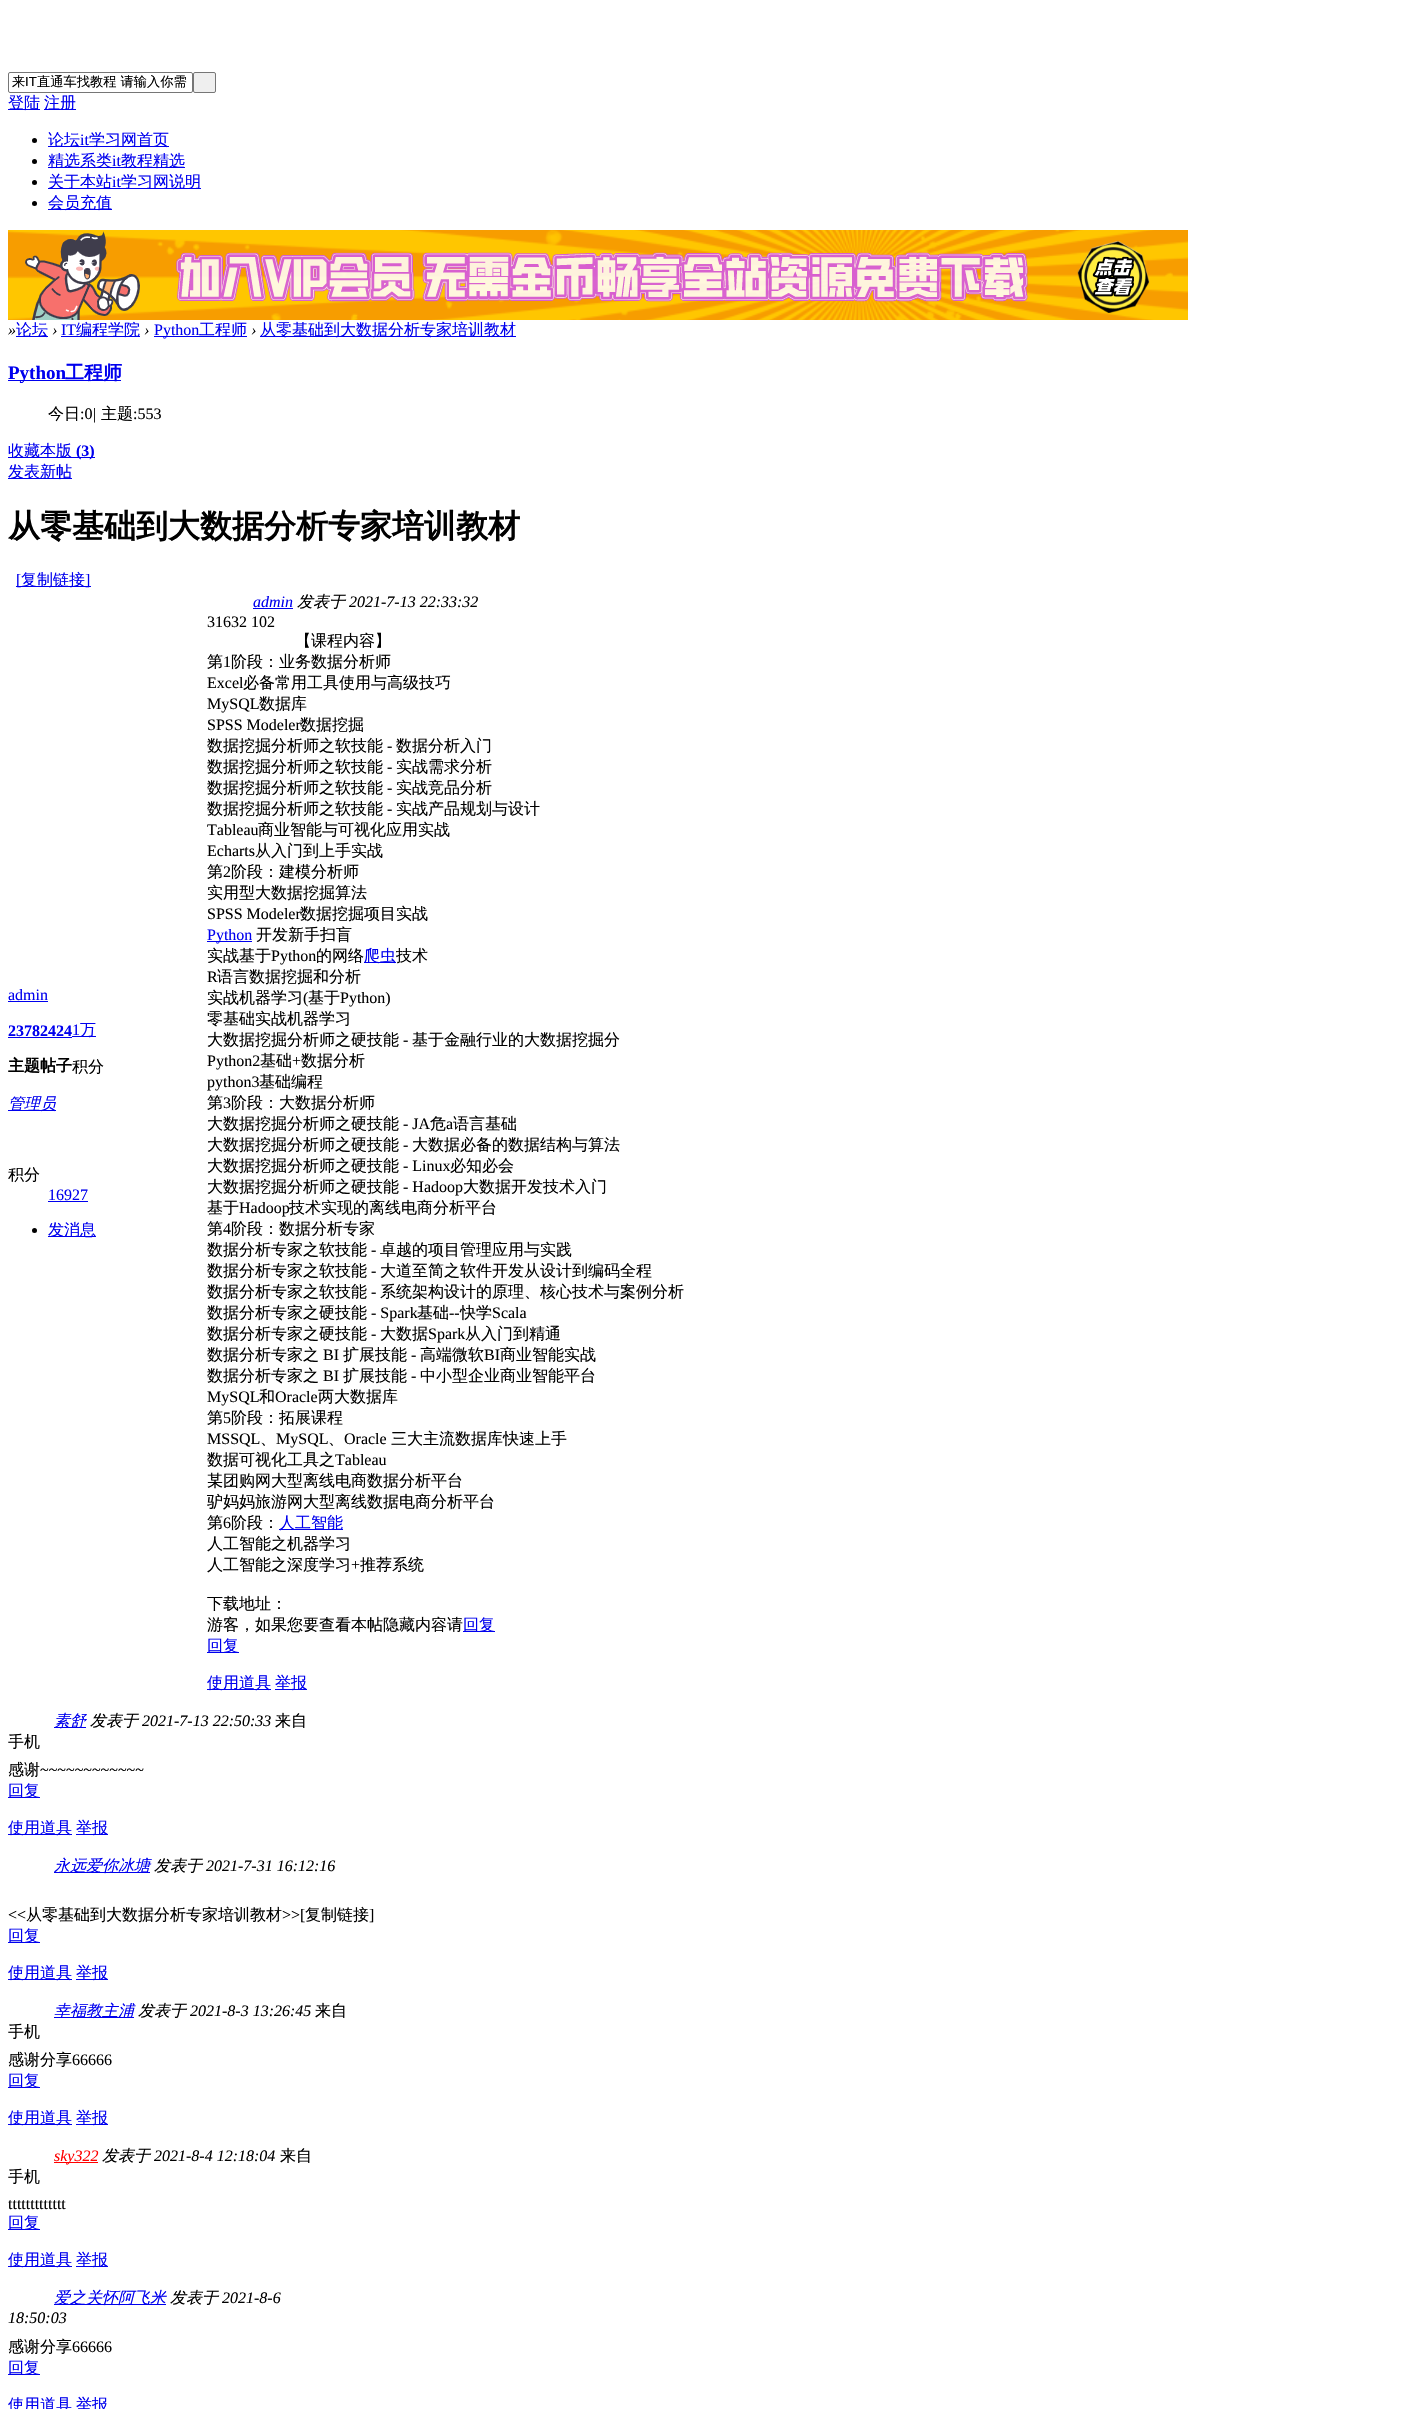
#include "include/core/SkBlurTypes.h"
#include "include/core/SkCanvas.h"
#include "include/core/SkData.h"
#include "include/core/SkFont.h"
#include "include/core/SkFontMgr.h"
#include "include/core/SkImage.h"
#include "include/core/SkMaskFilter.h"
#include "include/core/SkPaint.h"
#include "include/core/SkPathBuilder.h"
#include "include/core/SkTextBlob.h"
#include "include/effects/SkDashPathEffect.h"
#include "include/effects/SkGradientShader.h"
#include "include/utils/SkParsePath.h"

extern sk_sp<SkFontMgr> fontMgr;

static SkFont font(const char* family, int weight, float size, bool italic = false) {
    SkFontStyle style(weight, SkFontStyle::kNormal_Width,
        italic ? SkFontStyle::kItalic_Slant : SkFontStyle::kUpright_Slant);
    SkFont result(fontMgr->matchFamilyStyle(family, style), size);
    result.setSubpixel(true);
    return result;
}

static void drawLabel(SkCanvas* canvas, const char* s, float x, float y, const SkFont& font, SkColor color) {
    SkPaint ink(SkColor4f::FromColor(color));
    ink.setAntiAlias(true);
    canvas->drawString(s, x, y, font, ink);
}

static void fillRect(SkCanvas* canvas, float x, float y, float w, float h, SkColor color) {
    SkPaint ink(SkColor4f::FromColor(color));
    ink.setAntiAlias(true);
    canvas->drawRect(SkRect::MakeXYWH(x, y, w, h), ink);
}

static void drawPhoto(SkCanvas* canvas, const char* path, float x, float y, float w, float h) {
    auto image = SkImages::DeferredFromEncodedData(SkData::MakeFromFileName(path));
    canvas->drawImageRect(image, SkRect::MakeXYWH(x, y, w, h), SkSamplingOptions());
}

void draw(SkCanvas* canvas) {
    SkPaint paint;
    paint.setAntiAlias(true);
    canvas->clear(0xFFFFFFFF);
    paint.setStroke(true);
    paint.setStrokeWidth(1);
    paint.setColor(0xFF767676);
    canvas->drawRoundRect(SkRect::MakeXYWH(8.5f, 72.5f, 184, 20), 1.5f, 1.5f, paint);
    SkFont font1 = font("WenQuanYi Zen Hei", 500, 13.25f);
    drawLabel(canvas, "来", 12, 86, font1, 0xFF000000);
    SkFont font2 = font("Liberation Sans", 400, 13.25f);
    drawLabel(canvas, "IT", 25, 86, font2, 0xFF000000);
    drawLabel(canvas, "直通车找教程 请输入你需", 37, 86, font1, 0xFF000000);
    paint.setStroke(false);
    paint.setColor(0xFFEFEFEF);
    canvas->drawRoundRect(SkRect::MakeXYWH(193.5f, 72.5f, 22, 20), 1.5f, 1.5f, paint);
    paint.setStroke(true);
    paint.setColor(0xFF767676);
    canvas->drawRoundRect(SkRect::MakeXYWH(193.5f, 72.5f, 22, 20), 1.5f, 1.5f, paint);
    fillRect(canvas, 8, 109, 32, 1, 0xFF0000EE);
    SkFont font3 = font("WenQuanYi Zen Hei", 500, 16);
    drawLabel(canvas, "登陆", 8, 108, font3, 0xFF0000EE);
    fillRect(canvas, 44, 109, 32, 1, 0xFF0000EE);
    drawLabel(canvas, "注册", 44, 108, font3, 0xFF0000EE);
    paint.setStroke(false);
    paint.setColor(0xFF000000);
    canvas->drawCircle(34.5f, 140.5f, 2.5f, paint);
    fillRect(canvas, 48, 146, 121, 1, 0xFF0000EE);
    drawLabel(canvas, "论坛", 48, 145, font3, 0xFF0000EE);
    SkFont font4 = font("Liberation Serif", 400, 16);
    drawLabel(canvas, "it", 80, 145, font4, 0xFF0000EE);
    drawLabel(canvas, "学习网首页", 89, 145, font3, 0xFF0000EE);
    canvas->drawCircle(34.5f, 161.5f, 2.5f, paint);
    fillRect(canvas, 48, 167, 137, 1, 0xFF0000EE);
    drawLabel(canvas, "精选系类", 48, 166, font3, 0xFF0000EE);
    drawLabel(canvas, "it", 112, 166, font4, 0xFF0000EE);
    drawLabel(canvas, "教程精选", 121, 166, font3, 0xFF0000EE);
    canvas->drawCircle(34.5f, 182.5f, 2.5f, paint);
    fillRect(canvas, 48, 188, 153, 1, 0xFF0000EE);
    drawLabel(canvas, "关于本站", 48, 187, font3, 0xFF0000EE);
    drawLabel(canvas, "it", 112, 187, font4, 0xFF0000EE);
    drawLabel(canvas, "学习网说明", 121, 187, font3, 0xFF0000EE);
    canvas->drawCircle(34.5f, 203.5f, 2.5f, paint);
    fillRect(canvas, 48, 209, 64, 1, 0xFF0000EE);
    drawLabel(canvas, "会员充值", 48, 208, font3, 0xFF0000EE);
    drawPhoto(canvas, "assets/img1.png", 8, 230, 1180, 90);
    SkFont font5 = font("Liberation Serif", 400, 16, true);
    drawLabel(canvas, "»", 8, 335, font5, 0xFF000000);
    fillRect(canvas, 16, 336, 32, 1, 0xFF0000EE);
    drawLabel(canvas, "论坛", 16, 335, font3, 0xFF0000EE);
    drawLabel(canvas, "›", 52, 335, font5, 0xFF000000);
    drawLabel(canvas, "IT", 61, 335, font4, 0xFF0000EE);
    fillRect(canvas, 61, 336, 79, 1, 0xFF0000EE);
    drawLabel(canvas, "编程学院", 76, 335, font3, 0xFF0000EE);
    drawLabel(canvas, "›", 144, 335, font5, 0xFF000000);
    fillRect(canvas, 154, 336, 93, 1, 0xFF0000EE);
    drawLabel(canvas, "Python", 154, 335, font4, 0xFF0000EE);
    drawLabel(canvas, "工程师", 199, 335, font3, 0xFF0000EE);
    drawLabel(canvas, "›", 251, 335, font5, 0xFF000000);
    fillRect(canvas, 260, 336, 256, 1, 0xFF0000EE);
    drawLabel(canvas, "从零基础到大数据分析专家培训教材", 260, 335, font3, 0xFF0000EE);
    fillRect(canvas, 8, 380, 113, 1, 0xFF0000EE);
    SkFont font6 = font("Liberation Serif", 700, 19);
    drawLabel(canvas, "Python", 8, 379, font6, 0xFF0000EE);
    SkFont font7 = font("WenQuanYi Zen Hei", 700, 19);
    drawLabel(canvas, "工程师", 65, 379, font7, 0xFF0000EE);
    drawLabel(canvas, "今日", 48, 419, font3, 0xFF000000);
    drawLabel(canvas, ":0", 80, 419, font4, 0xFF000000);
    drawLabel(canvas, "|", 92, 419, font5, 0xFF000000);
    drawLabel(canvas, "主题", 101, 419, font3, 0xFF000000);
    drawLabel(canvas, ":553", 133, 419, font4, 0xFF000000);
    fillRect(canvas, 8, 457, 87, 1, 0xFF0000EE);
    drawLabel(canvas, "收藏本版", 8, 456, font3, 0xFF0000EE);
    SkFont font8 = font("Liberation Serif", 700, 16);
    drawLabel(canvas, "(3)", 76, 456, font8, 0xFF0000EE);
    fillRect(canvas, 8, 478, 64, 1, 0xFF0000EE);
    drawLabel(canvas, "发表新帖", 8, 477, font3, 0xFF0000EE);
    SkFont font9 = font("WenQuanYi Zen Hei", 700, 32);
    drawLabel(canvas, "从零基础到大数据分析专家培训教材", 8, 537, font9, 0xFF000000);
    fillRect(canvas, 16, 586, 75, 1, 0xFF0000EE);
    drawLabel(canvas, "[", 16, 585, font4, 0xFF0000EE);
    drawLabel(canvas, "复制链接", 21, 585, font3, 0xFF0000EE);
    drawLabel(canvas, "]", 85, 585, font4, 0xFF0000EE);
    drawLabel(canvas, "admin", 8, 1000, font4, 0xFF0000EE);
    fillRect(canvas, 8, 1001, 40, 1, 0xFF0000EE);
    drawLabel(canvas, "23782424", 8, 1036, font8, 0xFF0000EE);
    fillRect(canvas, 8, 1037, 64, 1, 0xFF0000EE);
    SkFont font10 = font("WenQuanYi Zen Hei", 700, 16);
    drawLabel(canvas, "主题帖子", 8, 1071, font10, 0xFF000000);
    drawLabel(canvas, "1", 72, 1035, font4, 0xFF0000EE);
    fillRect(canvas, 72, 1036, 24, 1, 0xFF0000EE);
    drawLabel(canvas, "万", 80, 1035, font3, 0xFF0000EE);
    drawLabel(canvas, "积分", 72, 1072, font3, 0xFF000000);
    fillRect(canvas, 8, 1110, 48, 1, 0xFF0000EE);
    SkFont font11 = font("WenQuanYi Zen Hei", 500, 16, true);
    drawLabel(canvas, "管理员", 8, 1109, font11, 0xFF0000EE);
    drawLabel(canvas, "积分", 8, 1180, font3, 0xFF000000);
    drawLabel(canvas, "16927", 48, 1200, font4, 0xFF0000EE);
    fillRect(canvas, 48, 1201, 40, 1, 0xFF0000EE);
    canvas->drawCircle(34.5f, 1230.5f, 2.5f, paint);
    fillRect(canvas, 48, 1236, 48, 1, 0xFF0000EE);
    drawLabel(canvas, "发消息", 48, 1235, font3, 0xFF0000EE);
    drawLabel(canvas, "admin", 253, 607, font5, 0xFF0000EE);
    fillRect(canvas, 253, 608, 40, 1, 0xFF0000EE);
    drawLabel(canvas, "发表于", 297, 607, font11, 0xFF000000);
    drawLabel(canvas, "2021-7-13 22:33:32", 349, 607, font5, 0xFF000000);
    drawLabel(canvas, "31632 102", 207, 627, font4, 0xFF000000);
    drawLabel(canvas, "【课程内容】", 295, 646, font3, 0xFF000000);
    drawLabel(canvas, "第", 207, 667, font3, 0xFF000000);
    drawLabel(canvas, "1", 223, 667, font4, 0xFF000000);
    drawLabel(canvas, "阶段：业务数据分析师", 231, 667, font3, 0xFF000000);
    drawLabel(canvas, "Excel", 207, 688, font4, 0xFF000000);
    drawLabel(canvas, "必备常用工具使用与高级技巧", 243, 688, font3, 0xFF000000);
    drawLabel(canvas, "MySQL", 207, 709, font4, 0xFF000000);
    drawLabel(canvas, "数据库", 259, 709, font3, 0xFF000000);
    drawLabel(canvas, "SPSS Modeler", 207, 730, font4, 0xFF000000);
    drawLabel(canvas, "数据挖掘", 300, 730, font3, 0xFF000000);
    drawLabel(canvas, "数据挖掘分析师之软技能", 207, 751, font3, 0xFF000000);
    drawLabel(canvas, "-", 387, 751, font4, 0xFF000000);
    drawLabel(canvas, "数据分析入门", 396, 751, font3, 0xFF000000);
    drawLabel(canvas, "数据挖掘分析师之软技能", 207, 772, font3, 0xFF000000);
    drawLabel(canvas, "-", 387, 772, font4, 0xFF000000);
    drawLabel(canvas, "实战需求分析", 396, 772, font3, 0xFF000000);
    drawLabel(canvas, "数据挖掘分析师之软技能", 207, 793, font3, 0xFF000000);
    drawLabel(canvas, "-", 387, 793, font4, 0xFF000000);
    drawLabel(canvas, "实战竞品分析", 396, 793, font3, 0xFF000000);
    drawLabel(canvas, "数据挖掘分析师之软技能", 207, 814, font3, 0xFF000000);
    drawLabel(canvas, "-", 387, 814, font4, 0xFF000000);
    drawLabel(canvas, "实战产品规划与设计", 396, 814, font3, 0xFF000000);
    drawLabel(canvas, "Tableau", 207, 835, font4, 0xFF000000);
    drawLabel(canvas, "商业智能与可视化应用实战", 258, 835, font3, 0xFF000000);
    drawLabel(canvas, "Echarts", 207, 856, font4, 0xFF000000);
    drawLabel(canvas, "从入门到上手实战", 255, 856, font3, 0xFF000000);
    drawLabel(canvas, "第", 207, 877, font3, 0xFF000000);
    drawLabel(canvas, "2", 223, 877, font4, 0xFF000000);
    drawLabel(canvas, "阶段：建模分析师", 231, 877, font3, 0xFF000000);
    drawLabel(canvas, "实用型大数据挖掘算法", 207, 898, font3, 0xFF000000);
    drawLabel(canvas, "SPSS Modeler", 207, 919, font4, 0xFF000000);
    drawLabel(canvas, "数据挖掘项目实战", 300, 919, font3, 0xFF000000);
    fillRect(canvas, 207, 941, 45, 1, 0xFF0000EE);
    drawLabel(canvas, "Python", 207, 940, font4, 0xFF0000EE);
    drawLabel(canvas, "开发新手扫盲", 256, 940, font3, 0xFF000000);
    drawLabel(canvas, "实战基于", 207, 961, font3, 0xFF000000);
    drawLabel(canvas, "Python", 271, 961, font4, 0xFF000000);
    drawLabel(canvas, "的网络", 316, 961, font3, 0xFF000000);
    fillRect(canvas, 364, 962, 32, 1, 0xFF0000EE);
    drawLabel(canvas, "爬虫", 364, 961, font3, 0xFF0000EE);
    drawLabel(canvas, "技术", 396, 961, font3, 0xFF000000);
    drawLabel(canvas, "R", 207, 982, font4, 0xFF000000);
    drawLabel(canvas, "语言数据挖掘和分析", 217, 982, font3, 0xFF000000);
    drawLabel(canvas, "实战机器学习", 207, 1003, font3, 0xFF000000);
    drawLabel(canvas, "(", 303, 1003, font4, 0xFF000000);
    drawLabel(canvas, "基于", 308, 1003, font3, 0xFF000000);
    drawLabel(canvas, "Python)", 340, 1003, font4, 0xFF000000);
    drawLabel(canvas, "零基础实战机器学习", 207, 1024, font3, 0xFF000000);
    drawLabel(canvas, "大数据挖掘分析师之硬技能", 207, 1045, font3, 0xFF000000);
    drawLabel(canvas, "-", 403, 1045, font4, 0xFF000000);
    drawLabel(canvas, "基于金融行业的大数据挖掘分", 412, 1045, font3, 0xFF000000);
    drawLabel(canvas, "Python2", 207, 1066, font4, 0xFF000000);
    drawLabel(canvas, "基础", 260, 1066, font3, 0xFF000000);
    drawLabel(canvas, "+", 292, 1066, font4, 0xFF000000);
    drawLabel(canvas, "数据分析", 301, 1066, font3, 0xFF000000);
    drawLabel(canvas, "python3", 207, 1087, font4, 0xFF000000);
    drawLabel(canvas, "基础编程", 259, 1087, font3, 0xFF000000);
    drawLabel(canvas, "第", 207, 1108, font3, 0xFF000000);
    drawLabel(canvas, "3", 223, 1108, font4, 0xFF000000);
    drawLabel(canvas, "阶段：大数据分析师", 231, 1108, font3, 0xFF000000);
    drawLabel(canvas, "大数据挖掘分析师之硬技能", 207, 1129, font3, 0xFF000000);
    drawLabel(canvas, "- JA", 403, 1129, font4, 0xFF000000);
    drawLabel(canvas, "危", 430, 1129, font3, 0xFF000000);
    drawLabel(canvas, "a", 446, 1129, font4, 0xFF000000);
    drawLabel(canvas, "语言基础", 453, 1129, font3, 0xFF000000);
    drawLabel(canvas, "大数据挖掘分析师之硬技能", 207, 1150, font3, 0xFF000000);
    drawLabel(canvas, "-", 403, 1150, font4, 0xFF000000);
    drawLabel(canvas, "大数据必备的数据结构与算法", 412, 1150, font3, 0xFF000000);
    drawLabel(canvas, "大数据挖掘分析师之硬技能", 207, 1171, font3, 0xFF000000);
    drawLabel(canvas, "- Linux", 403, 1171, font4, 0xFF000000);
    drawLabel(canvas, "必知必会", 450, 1171, font3, 0xFF000000);
    drawLabel(canvas, "大数据挖掘分析师之硬技能", 207, 1192, font3, 0xFF000000);
    drawLabel(canvas, "- Hadoop", 403, 1192, font4, 0xFF000000);
    drawLabel(canvas, "大数据开发技术入门", 463, 1192, font3, 0xFF000000);
    drawLabel(canvas, "基于", 207, 1213, font3, 0xFF000000);
    drawLabel(canvas, "Hadoop", 239, 1213, font4, 0xFF000000);
    drawLabel(canvas, "技术实现的离线电商分析平台", 289, 1213, font3, 0xFF000000);
    drawLabel(canvas, "第", 207, 1234, font3, 0xFF000000);
    drawLabel(canvas, "4", 223, 1234, font4, 0xFF000000);
    drawLabel(canvas, "阶段：数据分析专家", 231, 1234, font3, 0xFF000000);
    drawLabel(canvas, "数据分析专家之软技能", 207, 1255, font3, 0xFF000000);
    drawLabel(canvas, "-", 371, 1255, font4, 0xFF000000);
    drawLabel(canvas, "卓越的项目管理应用与实践", 380, 1255, font3, 0xFF000000);
    drawLabel(canvas, "数据分析专家之软技能", 207, 1276, font3, 0xFF000000);
    drawLabel(canvas, "-", 371, 1276, font4, 0xFF000000);
    drawLabel(canvas, "大道至简之软件开发从设计到编码全程", 380, 1276, font3, 0xFF000000);
    drawLabel(canvas, "数据分析专家之软技能", 207, 1297, font3, 0xFF000000);
    drawLabel(canvas, "-", 371, 1297, font4, 0xFF000000);
    drawLabel(canvas, "系统架构设计的原理、核心技术与案例分析", 380, 1297, font3, 0xFF000000);
    drawLabel(canvas, "数据分析专家之硬技能", 207, 1318, font3, 0xFF000000);
    drawLabel(canvas, "- Spark", 371, 1318, font4, 0xFF000000);
    drawLabel(canvas, "基础", 417, 1318, font3, 0xFF000000);
    drawLabel(canvas, "--", 449, 1318, font4, 0xFF000000);
    drawLabel(canvas, "快学", 460, 1318, font3, 0xFF000000);
    drawLabel(canvas, "Scala", 492, 1318, font4, 0xFF000000);
    drawLabel(canvas, "数据分析专家之硬技能", 207, 1339, font3, 0xFF000000);
    drawLabel(canvas, "-", 371, 1339, font4, 0xFF000000);
    drawLabel(canvas, "大数据", 380, 1339, font3, 0xFF000000);
    drawLabel(canvas, "Spark", 428, 1339, font4, 0xFF000000);
    drawLabel(canvas, "从入门到精通", 465, 1339, font3, 0xFF000000);
    drawLabel(canvas, "数据分析专家之", 207, 1360, font3, 0xFF000000);
    drawLabel(canvas, "BI", 323, 1360, font4, 0xFF000000);
    drawLabel(canvas, "扩展技能", 343, 1360, font3, 0xFF000000);
    drawLabel(canvas, "-", 411, 1360, font4, 0xFF000000);
    drawLabel(canvas, "高端微软", 420, 1360, font3, 0xFF000000);
    drawLabel(canvas, "BI", 484, 1360, font4, 0xFF000000);
    drawLabel(canvas, "商业智能实战", 500, 1360, font3, 0xFF000000);
    drawLabel(canvas, "数据分析专家之", 207, 1381, font3, 0xFF000000);
    drawLabel(canvas, "BI", 323, 1381, font4, 0xFF000000);
    drawLabel(canvas, "扩展技能", 343, 1381, font3, 0xFF000000);
    drawLabel(canvas, "-", 411, 1381, font4, 0xFF000000);
    drawLabel(canvas, "中小型企业商业智能平台", 420, 1381, font3, 0xFF000000);
    drawLabel(canvas, "MySQL", 207, 1402, font4, 0xFF000000);
    drawLabel(canvas, "和", 259, 1402, font3, 0xFF000000);
    drawLabel(canvas, "Oracle", 275, 1402, font4, 0xFF000000);
    drawLabel(canvas, "两大数据库", 318, 1402, font3, 0xFF000000);
    drawLabel(canvas, "第", 207, 1423, font3, 0xFF000000);
    drawLabel(canvas, "5", 223, 1423, font4, 0xFF000000);
    drawLabel(canvas, "阶段：拓展课程", 231, 1423, font3, 0xFF000000);
    drawLabel(canvas, "MSSQL", 207, 1444, font4, 0xFF000000);
    drawLabel(canvas, "、", 260, 1444, font3, 0xFF000000);
    drawLabel(canvas, "MySQL", 276, 1444, font4, 0xFF000000);
    drawLabel(canvas, "、", 328, 1444, font3, 0xFF000000);
    drawLabel(canvas, "Oracle", 344, 1444, font4, 0xFF000000);
    drawLabel(canvas, "三大主流数据库快速上手", 391, 1444, font3, 0xFF000000);
    drawLabel(canvas, "数据可视化工具之", 207, 1465, font3, 0xFF000000);
    drawLabel(canvas, "Tableau", 335, 1465, font4, 0xFF000000);
    drawLabel(canvas, "某团购网大型离线电商数据分析平台", 207, 1486, font3, 0xFF000000);
    drawLabel(canvas, "驴妈妈旅游网大型离线数据电商分析平台", 207, 1507, font3, 0xFF000000);
    drawLabel(canvas, "第", 207, 1528, font3, 0xFF000000);
    drawLabel(canvas, "6", 223, 1528, font4, 0xFF000000);
    drawLabel(canvas, "阶段：", 231, 1528, font3, 0xFF000000);
    fillRect(canvas, 279, 1529, 64, 1, 0xFF0000EE);
    drawLabel(canvas, "人工智能", 279, 1528, font3, 0xFF0000EE);
    drawLabel(canvas, "人工智能之机器学习", 207, 1549, font3, 0xFF000000);
    drawLabel(canvas, "人工智能之深度学习", 207, 1570, font3, 0xFF000000);
    drawLabel(canvas, "+", 351, 1570, font4, 0xFF000000);
    drawLabel(canvas, "推荐系统", 360, 1570, font3, 0xFF000000);
    drawLabel(canvas, "下载地址：", 207, 1609, font3, 0xFF000000);
    drawLabel(canvas, "游客，如果您要查看本帖隐藏内容请", 207, 1630, font3, 0xFF000000);
    fillRect(canvas, 463, 1631, 32, 1, 0xFF0000EE);
    drawLabel(canvas, "回复", 463, 1630, font3, 0xFF0000EE);
    fillRect(canvas, 207, 1652, 32, 1, 0xFF0000EE);
    drawLabel(canvas, "回复", 207, 1651, font3, 0xFF0000EE);
    fillRect(canvas, 207, 1689, 64, 1, 0xFF0000EE);
    drawLabel(canvas, "使用道具", 207, 1688, font3, 0xFF0000EE);
    fillRect(canvas, 275, 1689, 32, 1, 0xFF0000EE);
    drawLabel(canvas, "举报", 275, 1688, font3, 0xFF0000EE);
    fillRect(canvas, 54, 1727, 32, 1, 0xFF0000EE);
    drawLabel(canvas, "素舒", 54, 1726, font11, 0xFF0000EE);
    drawLabel(canvas, "发表于", 90, 1726, font11, 0xFF000000);
    drawLabel(canvas, "2021-7-13 22:50:33", 142, 1726, font5, 0xFF000000);
    drawLabel(canvas, "来自", 275, 1726, font3, 0xFF000000);
    drawLabel(canvas, "手机", 8, 1747, font3, 0xFF000000);
    drawLabel(canvas, "感谢", 8, 1775, font3, 0xFF000000);
    drawLabel(canvas, "~~~~~~~~~~~~", 40, 1775, font4, 0xFF000000);
    fillRect(canvas, 8, 1797, 32, 1, 0xFF0000EE);
    drawLabel(canvas, "回复", 8, 1796, font3, 0xFF0000EE);
    fillRect(canvas, 8, 1834, 64, 1, 0xFF0000EE);
    drawLabel(canvas, "使用道具", 8, 1833, font3, 0xFF0000EE);
    fillRect(canvas, 76, 1834, 32, 1, 0xFF0000EE);
    drawLabel(canvas, "举报", 76, 1833, font3, 0xFF0000EE);
    fillRect(canvas, 54, 1872, 96, 1, 0xFF0000EE);
    drawLabel(canvas, "永远爱你冰塘", 54, 1871, font11, 0xFF0000EE);
    drawLabel(canvas, "发表于", 154, 1871, font11, 0xFF000000);
    drawLabel(canvas, "2021-7-31 16:12:16", 206, 1871, font5, 0xFF000000);
    drawLabel(canvas, "<<", 8, 1920, font4, 0xFF000000);
    drawLabel(canvas, "从零基础到大数据分析专家培训教材", 26, 1920, font3, 0xFF000000);
    drawLabel(canvas, ">>[", 282, 1920, font4, 0xFF000000);
    drawLabel(canvas, "复制链接", 305, 1920, font3, 0xFF000000);
    drawLabel(canvas, "]", 369, 1920, font4, 0xFF000000);
    fillRect(canvas, 8, 1942, 32, 1, 0xFF0000EE);
    drawLabel(canvas, "回复", 8, 1941, font3, 0xFF0000EE);
    fillRect(canvas, 8, 1979, 64, 1, 0xFF0000EE);
    drawLabel(canvas, "使用道具", 8, 1978, font3, 0xFF0000EE);
    fillRect(canvas, 76, 1979, 32, 1, 0xFF0000EE);
    drawLabel(canvas, "举报", 76, 1978, font3, 0xFF0000EE);
    fillRect(canvas, 54, 2017, 80, 1, 0xFF0000EE);
    drawLabel(canvas, "幸福教主浦", 54, 2016, font11, 0xFF0000EE);
    drawLabel(canvas, "发表于", 138, 2016, font11, 0xFF000000);
    drawLabel(canvas, "2021-8-3 13:26:45", 190, 2016, font5, 0xFF000000);
    drawLabel(canvas, "来自", 315, 2016, font3, 0xFF000000);
    drawLabel(canvas, "手机", 8, 2037, font3, 0xFF000000);
    drawLabel(canvas, "感谢分享", 8, 2065, font3, 0xFF000000);
    drawLabel(canvas, "66666", 72, 2065, font4, 0xFF000000);
    fillRect(canvas, 8, 2087, 32, 1, 0xFF0000EE);
    drawLabel(canvas, "回复", 8, 2086, font3, 0xFF0000EE);
    fillRect(canvas, 8, 2124, 64, 1, 0xFF0000EE);
    drawLabel(canvas, "使用道具", 8, 2123, font3, 0xFF0000EE);
    fillRect(canvas, 76, 2124, 32, 1, 0xFF0000EE);
    drawLabel(canvas, "举报", 76, 2123, font3, 0xFF0000EE);
    fillRect(canvas, 54, 2162, 44, 1, 0xFFFF0000);
    drawLabel(canvas, "sky322", 54, 2161, font5, 0xFFFF0000);
    drawLabel(canvas, "发表于", 102, 2161, font11, 0xFF000000);
    drawLabel(canvas, "2021-8-4 12:18:04", 154, 2161, font5, 0xFF000000);
    drawLabel(canvas, "来自", 280, 2161, font3, 0xFF000000);
    drawLabel(canvas, "手机", 8, 2182, font3, 0xFF000000);
    drawLabel(canvas, "ttttttttttttt", 8, 2209, font4, 0xFF000000);
    fillRect(canvas, 8, 2229, 32, 1, 0xFF0000EE);
    drawLabel(canvas, "回复", 8, 2228, font3, 0xFF0000EE);
    fillRect(canvas, 8, 2266, 64, 1, 0xFF0000EE);
    drawLabel(canvas, "使用道具", 8, 2265, font3, 0xFF0000EE);
    fillRect(canvas, 76, 2266, 32, 1, 0xFF0000EE);
    drawLabel(canvas, "举报", 76, 2265, font3, 0xFF0000EE);
    fillRect(canvas, 54, 2304, 112, 1, 0xFF0000EE);
    drawLabel(canvas, "爱之关怀阿飞米", 54, 2303, font11, 0xFF0000EE);
    drawLabel(canvas, "发表于", 170, 2303, font11, 0xFF000000);
    drawLabel(canvas, "2021-8-6", 222, 2303, font5, 0xFF000000);
    drawLabel(canvas, "18:50:03", 8, 2323, font5, 0xFF000000);
    drawLabel(canvas, "感谢分享", 8, 2352, font3, 0xFF000000);
    drawLabel(canvas, "66666", 72, 2352, font4, 0xFF000000);
    fillRect(canvas, 8, 2374, 32, 1, 0xFF0000EE);
    drawLabel(canvas, "回复", 8, 2373, font3, 0xFF0000EE);
    drawLabel(canvas, "使用道具", 8, 2410, font3, 0xFF0000EE);
    drawLabel(canvas, "举报", 76, 2410, font3, 0xFF0000EE);
}
